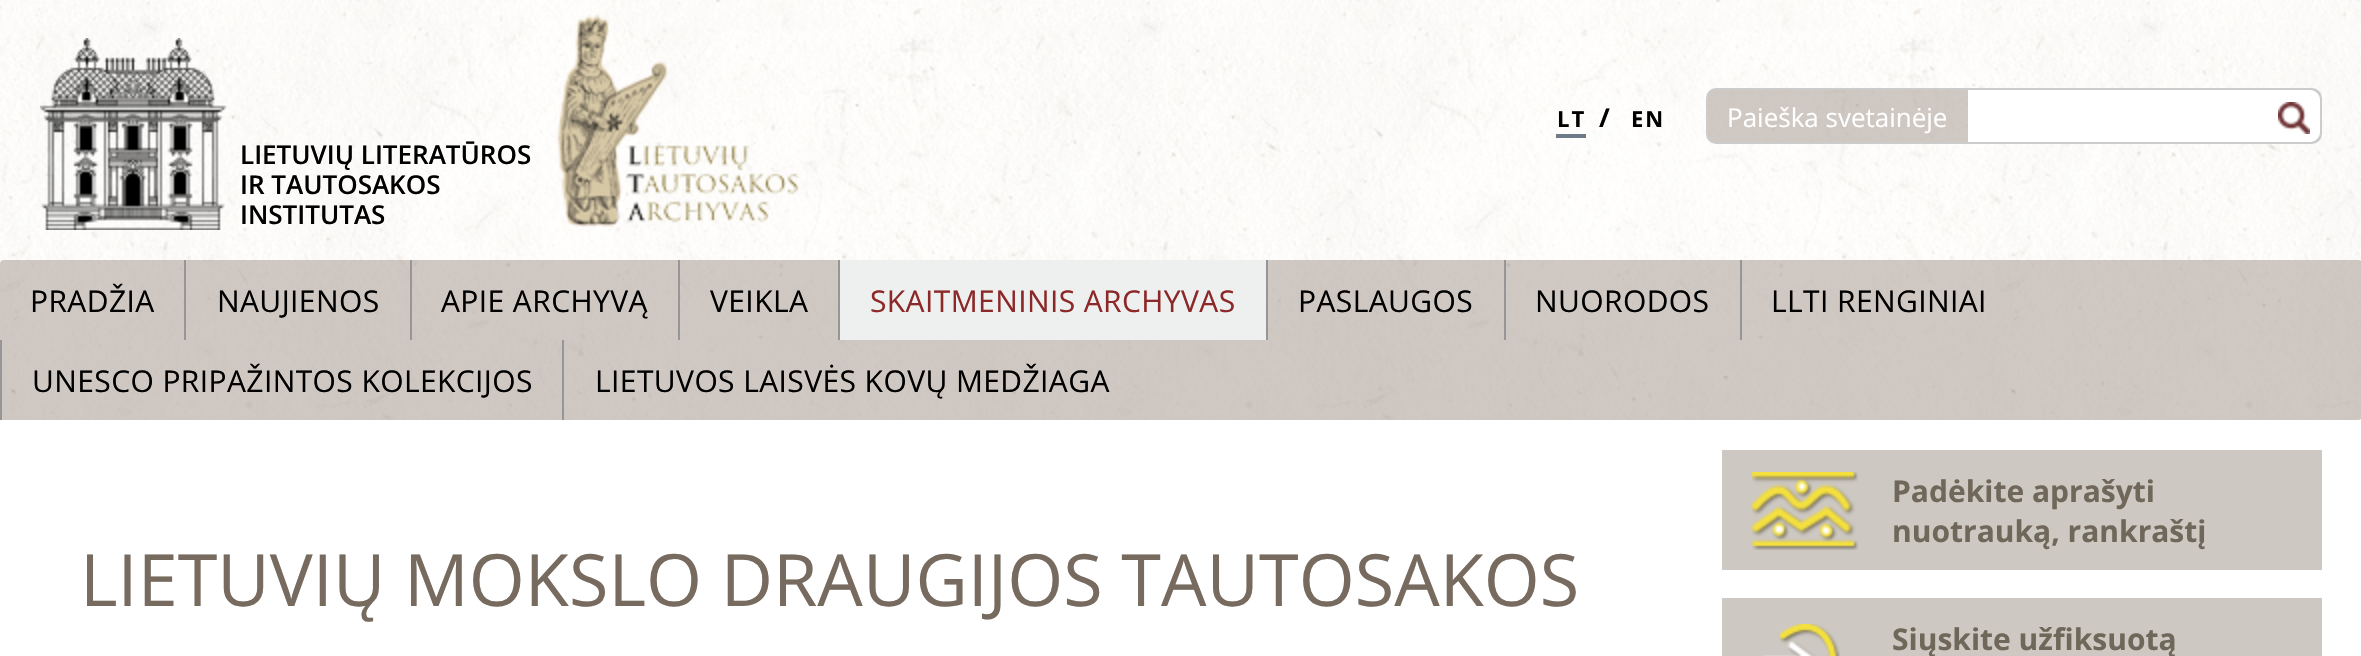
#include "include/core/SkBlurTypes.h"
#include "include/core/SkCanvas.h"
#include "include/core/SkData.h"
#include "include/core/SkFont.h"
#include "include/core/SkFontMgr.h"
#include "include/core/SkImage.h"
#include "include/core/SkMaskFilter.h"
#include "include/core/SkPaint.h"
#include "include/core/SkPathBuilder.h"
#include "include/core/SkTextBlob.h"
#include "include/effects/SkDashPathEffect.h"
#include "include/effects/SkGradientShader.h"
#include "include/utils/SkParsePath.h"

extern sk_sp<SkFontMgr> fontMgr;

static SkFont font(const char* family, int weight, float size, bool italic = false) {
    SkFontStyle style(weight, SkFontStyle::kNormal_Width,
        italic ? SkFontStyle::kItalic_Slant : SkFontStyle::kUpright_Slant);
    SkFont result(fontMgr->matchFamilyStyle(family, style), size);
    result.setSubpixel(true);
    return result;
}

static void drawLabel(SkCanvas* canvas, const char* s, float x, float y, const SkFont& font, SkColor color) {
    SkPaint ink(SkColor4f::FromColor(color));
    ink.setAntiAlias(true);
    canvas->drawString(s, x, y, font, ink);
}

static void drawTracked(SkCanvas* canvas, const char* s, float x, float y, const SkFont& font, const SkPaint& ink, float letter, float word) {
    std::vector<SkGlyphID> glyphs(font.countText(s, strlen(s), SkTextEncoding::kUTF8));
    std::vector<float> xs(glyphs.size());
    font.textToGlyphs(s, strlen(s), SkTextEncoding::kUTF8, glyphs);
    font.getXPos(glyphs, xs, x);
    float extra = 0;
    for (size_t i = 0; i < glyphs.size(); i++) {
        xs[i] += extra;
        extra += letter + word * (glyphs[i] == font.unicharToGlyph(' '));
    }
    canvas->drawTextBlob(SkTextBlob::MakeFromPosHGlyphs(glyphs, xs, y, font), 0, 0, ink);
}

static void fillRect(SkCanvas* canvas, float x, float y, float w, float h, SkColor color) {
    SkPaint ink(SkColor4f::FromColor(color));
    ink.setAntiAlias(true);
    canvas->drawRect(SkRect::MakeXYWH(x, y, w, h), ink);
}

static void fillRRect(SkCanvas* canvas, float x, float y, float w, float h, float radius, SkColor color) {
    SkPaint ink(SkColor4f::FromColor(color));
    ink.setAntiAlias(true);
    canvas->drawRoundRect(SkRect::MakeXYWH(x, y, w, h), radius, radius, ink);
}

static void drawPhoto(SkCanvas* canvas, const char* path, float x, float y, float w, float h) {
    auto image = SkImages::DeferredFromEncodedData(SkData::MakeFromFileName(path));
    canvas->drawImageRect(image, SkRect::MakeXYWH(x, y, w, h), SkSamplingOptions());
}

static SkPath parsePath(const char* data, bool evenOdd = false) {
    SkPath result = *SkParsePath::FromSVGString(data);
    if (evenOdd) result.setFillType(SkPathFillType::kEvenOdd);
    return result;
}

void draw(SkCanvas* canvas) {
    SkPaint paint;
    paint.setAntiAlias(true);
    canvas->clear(0xFFFFFFFF);
    drawPhoto(canvas, "assets/img1.png", 0, 0, 2361, 420);
    drawPhoto(canvas, "assets/img2.png", 40, 38, 187, 192);
    drawPhoto(canvas, "assets/img3.png", 557, 14, 242, 213);
    SkFont font1 = font("Open Sans", 700, 22);
    paint.setColor(0xFF000000);
    drawTracked(canvas, "LT", 1557, 127, font1, paint, 2, 0);
    fillRect(canvas, 1556, 134, 30, 4, 0xFF6D7A88);
    SkFont font2 = font("Open Sans", 700, 26);
    drawLabel(canvas, "/", 1599, 127, font2, 0xFF000000);
    drawTracked(canvas, "EN", 1631, 127, font1, paint, 2, 0);
    paint.setColor(0x80A1948A);
    canvas->drawRoundRect(SkRect::MakeXYWH(1707, 89, 614, 54), 9, 9, paint);
    paint.setStroke(true);
    paint.setStrokeWidth(2);
    paint.setColor(0xFFCCCCCC);
    canvas->drawRoundRect(SkRect::MakeXYWH(1707, 89, 614, 54), 9, 9, paint);
    SkFont font3 = font("Open Sans", 400, 26);
    drawLabel(canvas, "Paieška svetainėje", 1727, 127, font3, 0xFFFFFFFF);
    paint.setStroke(false);
    paint.setColor(0xFFFFFFFF);
    canvas->drawPath(parsePath("M1968 90H2310C2315.5 90 2320 94.5 2320 100V132C2320 137.5 2315.5 142 2310 142H1968Z"), paint);
    drawPhoto(canvas, "assets/img4.png", 2278, 102, 32, 32);
    SkFont font4 = font("Open Sans", 600, 26);
    drawLabel(canvas, "LIETUVIŲ LITERATŪROS", 240, 164, font4, 0xFF000000);
    drawLabel(canvas, "IR TAUTOSAKOS", 240, 194, font4, 0xFF000000);
    drawLabel(canvas, "INSTITUTAS", 240, 224, font4, 0xFF000000);
    fillRRect(canvas, 0, 260, 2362, 160, 4, 0x80A1948A);
    SkFont font5 = font("Open Sans", 400, 30);
    paint.setColor(0xFF000000);
    drawTracked(canvas, "PRADŽIA", 30, 312, font5, paint, 0.4f, 0);
    fillRect(canvas, 184, 260, 2, 80, 0xFF969696);
    drawTracked(canvas, "NAUJIENOS", 217, 312, font5, paint, 0.4f, 0);
    fillRect(canvas, 410, 260, 2, 80, 0xFF969696);
    drawTracked(canvas, "APIE ARCHYVĄ", 441, 312, font5, paint, 0.4f, 0);
    fillRect(canvas, 678, 260, 2, 80, 0xFF969696);
    drawTracked(canvas, "VEIKLA", 710, 312, font5, paint, 0.4f, 0);
    fillRect(canvas, 840, 260, 426, 80, 0xFFEEEFEF);
    fillRect(canvas, 838, 260, 2, 80, 0xFF969696);
    paint.setColor(0xFF8C2828);
    drawTracked(canvas, "SKAITMENINIS ARCHYVAS", 870, 312, font5, paint, 0.4f, 0);
    fillRect(canvas, 1266, 260, 2, 80, 0xFF969696);
    paint.setColor(0xFF000000);
    drawTracked(canvas, "PASLAUGOS", 1298, 312, font5, paint, 0.4f, 0);
    fillRect(canvas, 1504, 260, 2, 80, 0xFF969696);
    drawTracked(canvas, "NUORODOS", 1535, 312, font5, paint, 0.4f, 0);
    fillRect(canvas, 1740, 260, 2, 80, 0xFF969696);
    drawTracked(canvas, "LLTI RENGINIAI", 1771, 312, font5, paint, 0.4f, 0);
    fillRect(canvas, 0, 340, 2, 80, 0xFF969696);
    drawTracked(canvas, "UNESCO PRIPAŽINTOS KOLEKCIJOS", 32, 392, font5, paint, 0.4f, 0);
    fillRect(canvas, 562, 340, 2, 80, 0xFF969696);
    drawTracked(canvas, "LIETUVOS LAISVĖS KOVŲ MEDŽIAGA", 595, 392, font5, paint, 0.4f, 0);
    SkFont font6 = font("Open Sans", 400, 72);
    drawLabel(canvas, "LIETUVIŲ MOKSLO DRAUGIJOS TAUTOSAKOS", 80, 606, font6, 0xFF776A5F);
    fillRect(canvas, 1722, 450, 600, 120, 0xFFCDC8C2);
    drawPhoto(canvas, "assets/img5.png", 1752, 472, 106, 78);
    SkFont font7 = font("Open Sans", 700, 30);
    drawLabel(canvas, "Padėkite aprašyti", 1892, 502, font7, 0xFF6F685A);
    drawLabel(canvas, "nuotrauką, rankraštį", 1892, 542, font7, 0xFF6F685A);
    fillRect(canvas, 1722, 598, 600, 58, 0xFFCDC8C2);
    drawPhoto(canvas, "assets/img6.png", 1762, 624, 78, 32);
    drawLabel(canvas, "Siųskite užfiksuotą", 1892, 650, font7, 0xFF6F685A);
}
